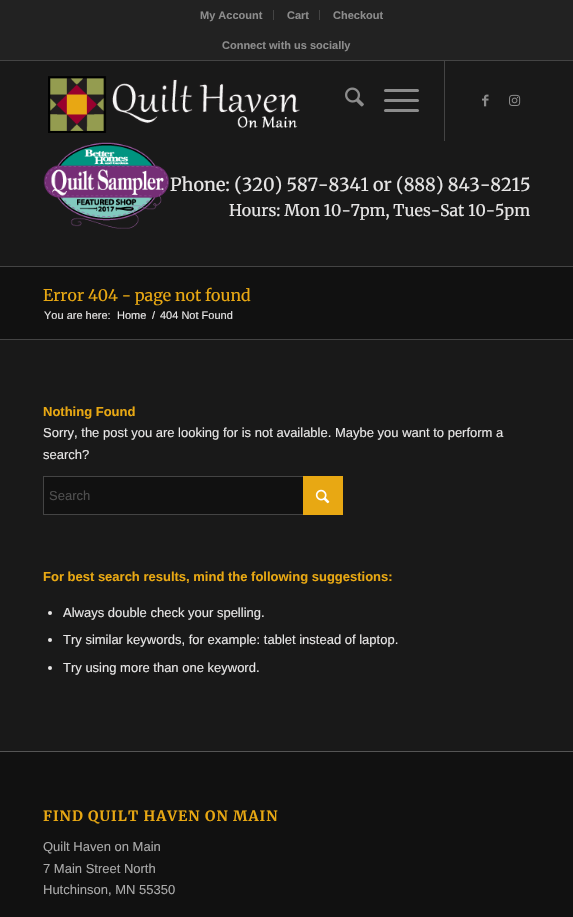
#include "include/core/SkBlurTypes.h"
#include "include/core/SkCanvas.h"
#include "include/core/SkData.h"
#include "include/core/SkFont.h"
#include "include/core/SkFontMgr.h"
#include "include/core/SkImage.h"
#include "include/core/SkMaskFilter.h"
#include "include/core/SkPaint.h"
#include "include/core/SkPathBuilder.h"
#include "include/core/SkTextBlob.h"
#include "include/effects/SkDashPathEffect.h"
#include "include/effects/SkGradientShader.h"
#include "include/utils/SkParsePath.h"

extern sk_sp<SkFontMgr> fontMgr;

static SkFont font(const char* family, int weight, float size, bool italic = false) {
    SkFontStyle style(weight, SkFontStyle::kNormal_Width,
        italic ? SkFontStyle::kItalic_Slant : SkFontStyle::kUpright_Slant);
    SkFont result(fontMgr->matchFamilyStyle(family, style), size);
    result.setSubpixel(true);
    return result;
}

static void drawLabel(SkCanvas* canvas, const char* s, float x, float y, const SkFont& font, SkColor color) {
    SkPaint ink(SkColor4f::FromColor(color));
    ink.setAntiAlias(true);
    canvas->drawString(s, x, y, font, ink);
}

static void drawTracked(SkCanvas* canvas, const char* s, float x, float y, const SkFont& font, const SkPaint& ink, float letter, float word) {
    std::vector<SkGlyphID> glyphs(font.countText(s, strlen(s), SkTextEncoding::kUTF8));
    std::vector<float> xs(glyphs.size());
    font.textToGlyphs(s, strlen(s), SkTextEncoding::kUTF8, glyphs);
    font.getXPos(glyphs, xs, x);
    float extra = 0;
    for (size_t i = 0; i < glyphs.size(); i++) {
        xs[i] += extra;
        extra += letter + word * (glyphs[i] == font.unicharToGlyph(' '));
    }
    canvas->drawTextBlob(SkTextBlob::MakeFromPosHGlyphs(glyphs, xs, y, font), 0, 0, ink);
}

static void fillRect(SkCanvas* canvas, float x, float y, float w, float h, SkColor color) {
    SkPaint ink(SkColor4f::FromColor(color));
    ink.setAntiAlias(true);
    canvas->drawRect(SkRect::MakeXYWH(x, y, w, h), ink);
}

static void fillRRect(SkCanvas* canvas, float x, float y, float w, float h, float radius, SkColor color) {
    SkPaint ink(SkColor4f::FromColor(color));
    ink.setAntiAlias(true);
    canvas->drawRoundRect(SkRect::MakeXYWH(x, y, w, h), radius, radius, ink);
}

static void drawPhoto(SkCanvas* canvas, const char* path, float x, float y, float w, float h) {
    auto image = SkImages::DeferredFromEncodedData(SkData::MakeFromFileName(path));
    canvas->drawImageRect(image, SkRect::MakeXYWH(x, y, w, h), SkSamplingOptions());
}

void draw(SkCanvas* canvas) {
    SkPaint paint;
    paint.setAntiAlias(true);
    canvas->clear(0xFF191919);
    fillRect(canvas, 0, 0, 573, 60, 0xFF222222);
    fillRect(canvas, 0, 60, 573, 1, 0xFF444444);
    fillRect(canvas, 273, 10, 1, 10, 0xFF444444);
    SkFont font1 = font("Liberation Sans", 700, 11);
    drawLabel(canvas, "My Account", 200, 19, font1, 0xFF8C8C8C);
    fillRect(canvas, 319, 10, 1, 10, 0xFF444444);
    drawLabel(canvas, "Cart", 287, 19, font1, 0xFF8C8C8C);
    drawLabel(canvas, "Checkout", 333, 19, font1, 0xFF8C8C8C);
    drawLabel(canvas, "Connect with us socially", 222, 49, font1, 0xFF8C8C8C);
    fillRect(canvas, 0, 266, 573, 1, 0xFF444444);
    drawPhoto(canvas, "assets/img1.png", 48, 76, 252, 57);
    fillRect(canvas, 444, 61, 1, 80, 0xFF444444);
    drawPhoto(canvas, "assets/img2.png", 345, 87, 19, 20);
    fillRRect(canvas, 384, 99, 35, 3, 1.5f, 0xFF8C8C8C);
    fillRRect(canvas, 384, 89, 35, 3, 1.5f, 0xFF8C8C8C);
    fillRRect(canvas, 384, 109, 35, 3, 1.5f, 0xFF8C8C8C);
    drawPhoto(canvas, "assets/img3.png", 482, 94, 7, 13);
    drawPhoto(canvas, "assets/img4.png", 509, 94, 12, 12);
    drawPhoto(canvas, "assets/img5.png", 43, 142, 126, 87);
    SkFont font2 = font("Merriweather", 400, 18);
    drawLabel(canvas, "Phone: (320) 587-8341 or (888) 843-8215", 170, 191, font2, 0xFFE7E6E6);
    SkFont font3 = font("Merriweather", 400, 16);
    drawLabel(canvas, "Hours: Mon 10-7pm, Tues-Sat 10-5pm", 229, 216, font3, 0xFFE7E6E6);
    fillRect(canvas, 0, 267, 573, 72, 0xFF111111);
    drawLabel(canvas, "Error 404 - page not found", 43, 301, font3, 0xFFE8A813);
    SkFont font4 = font("Liberation Sans", 400, 11);
    drawLabel(canvas, "You are here:", 44, 319, font4, 0xFFE7E6E6);
    drawLabel(canvas, "Home", 117, 319, font4, 0xFFE7E6E6);
    drawLabel(canvas, "/", 152, 319, font4, 0xFFE7E6E6);
    drawLabel(canvas, "404 Not Found", 160, 319, font4, 0xFFE7E6E6);
    fillRect(canvas, 0, 339, 573, 1, 0xFF444444);
    SkFont font5 = font("Liberation Sans", 700, 13);
    drawLabel(canvas, "Nothing Found", 43, 416, font5, 0xFFE8A813);
    SkFont font6 = font("Liberation Sans", 400, 13);
    drawLabel(canvas, "Sorry, the post you are looking for is not available. Maybe you want to perform a", 43, 437, font6, 0xFFE7E6E6);
    drawLabel(canvas, "search?", 43, 459, font6, 0xFFE7E6E6);
    fillRect(canvas, 44, 477, 259, 37, 0xFF111111);
    paint.setStroke(true);
    paint.setStrokeWidth(1);
    paint.setColor(0xFF444444);
    canvas->drawRect(SkRect::MakeXYWH(43.5f, 476.5f, 299, 38), paint);
    fillRect(canvas, 303, 476, 40, 39, 0xFFE8A813);
    drawLabel(canvas, "Search", 49, 500, font6, 0xFF4F4F4F);
    drawPhoto(canvas, "assets/img6.png", 315, 489, 15, 15);
    drawLabel(canvas, "For best search results, mind the following suggestions:", 43, 581, font5, 0xFFE8A813);
    paint.setStroke(false);
    paint.setColor(0xFFE7E6E6);
    canvas->drawCircle(50, 613, 2, paint);
    drawLabel(canvas, "Always double check your spelling.", 63, 617, font6, 0xFFE7E6E6);
    canvas->drawCircle(50, 640, 2, paint);
    drawLabel(canvas, "Try similar keywords, for example: tablet instead of laptop.", 63, 644, font6, 0xFFE7E6E6);
    canvas->drawCircle(50, 668, 2, paint);
    drawLabel(canvas, "Try using more than one keyword.", 63, 672, font6, 0xFFE7E6E6);
    fillRect(canvas, 0, 752, 573, 165, 0xFF111111);
    fillRect(canvas, 0, 751, 573, 1, 0xFF555555);
    SkFont font7 = font("Merriweather", 700, 14.25f);
    paint.setColor(0xFFE8A813);
    drawTracked(canvas, "FIND QUILT HAVEN ON MAIN", 43, 821, font7, paint, 1, 0);
    drawLabel(canvas, "Quilt Haven on Main", 43, 851, font6, 0xFFAAAAAA);
    drawLabel(canvas, "7 Main Street North", 43, 873, font6, 0xFFAAAAAA);
    drawLabel(canvas, "Hutchinson, MN 55350", 43, 894, font6, 0xFFAAAAAA);
}
